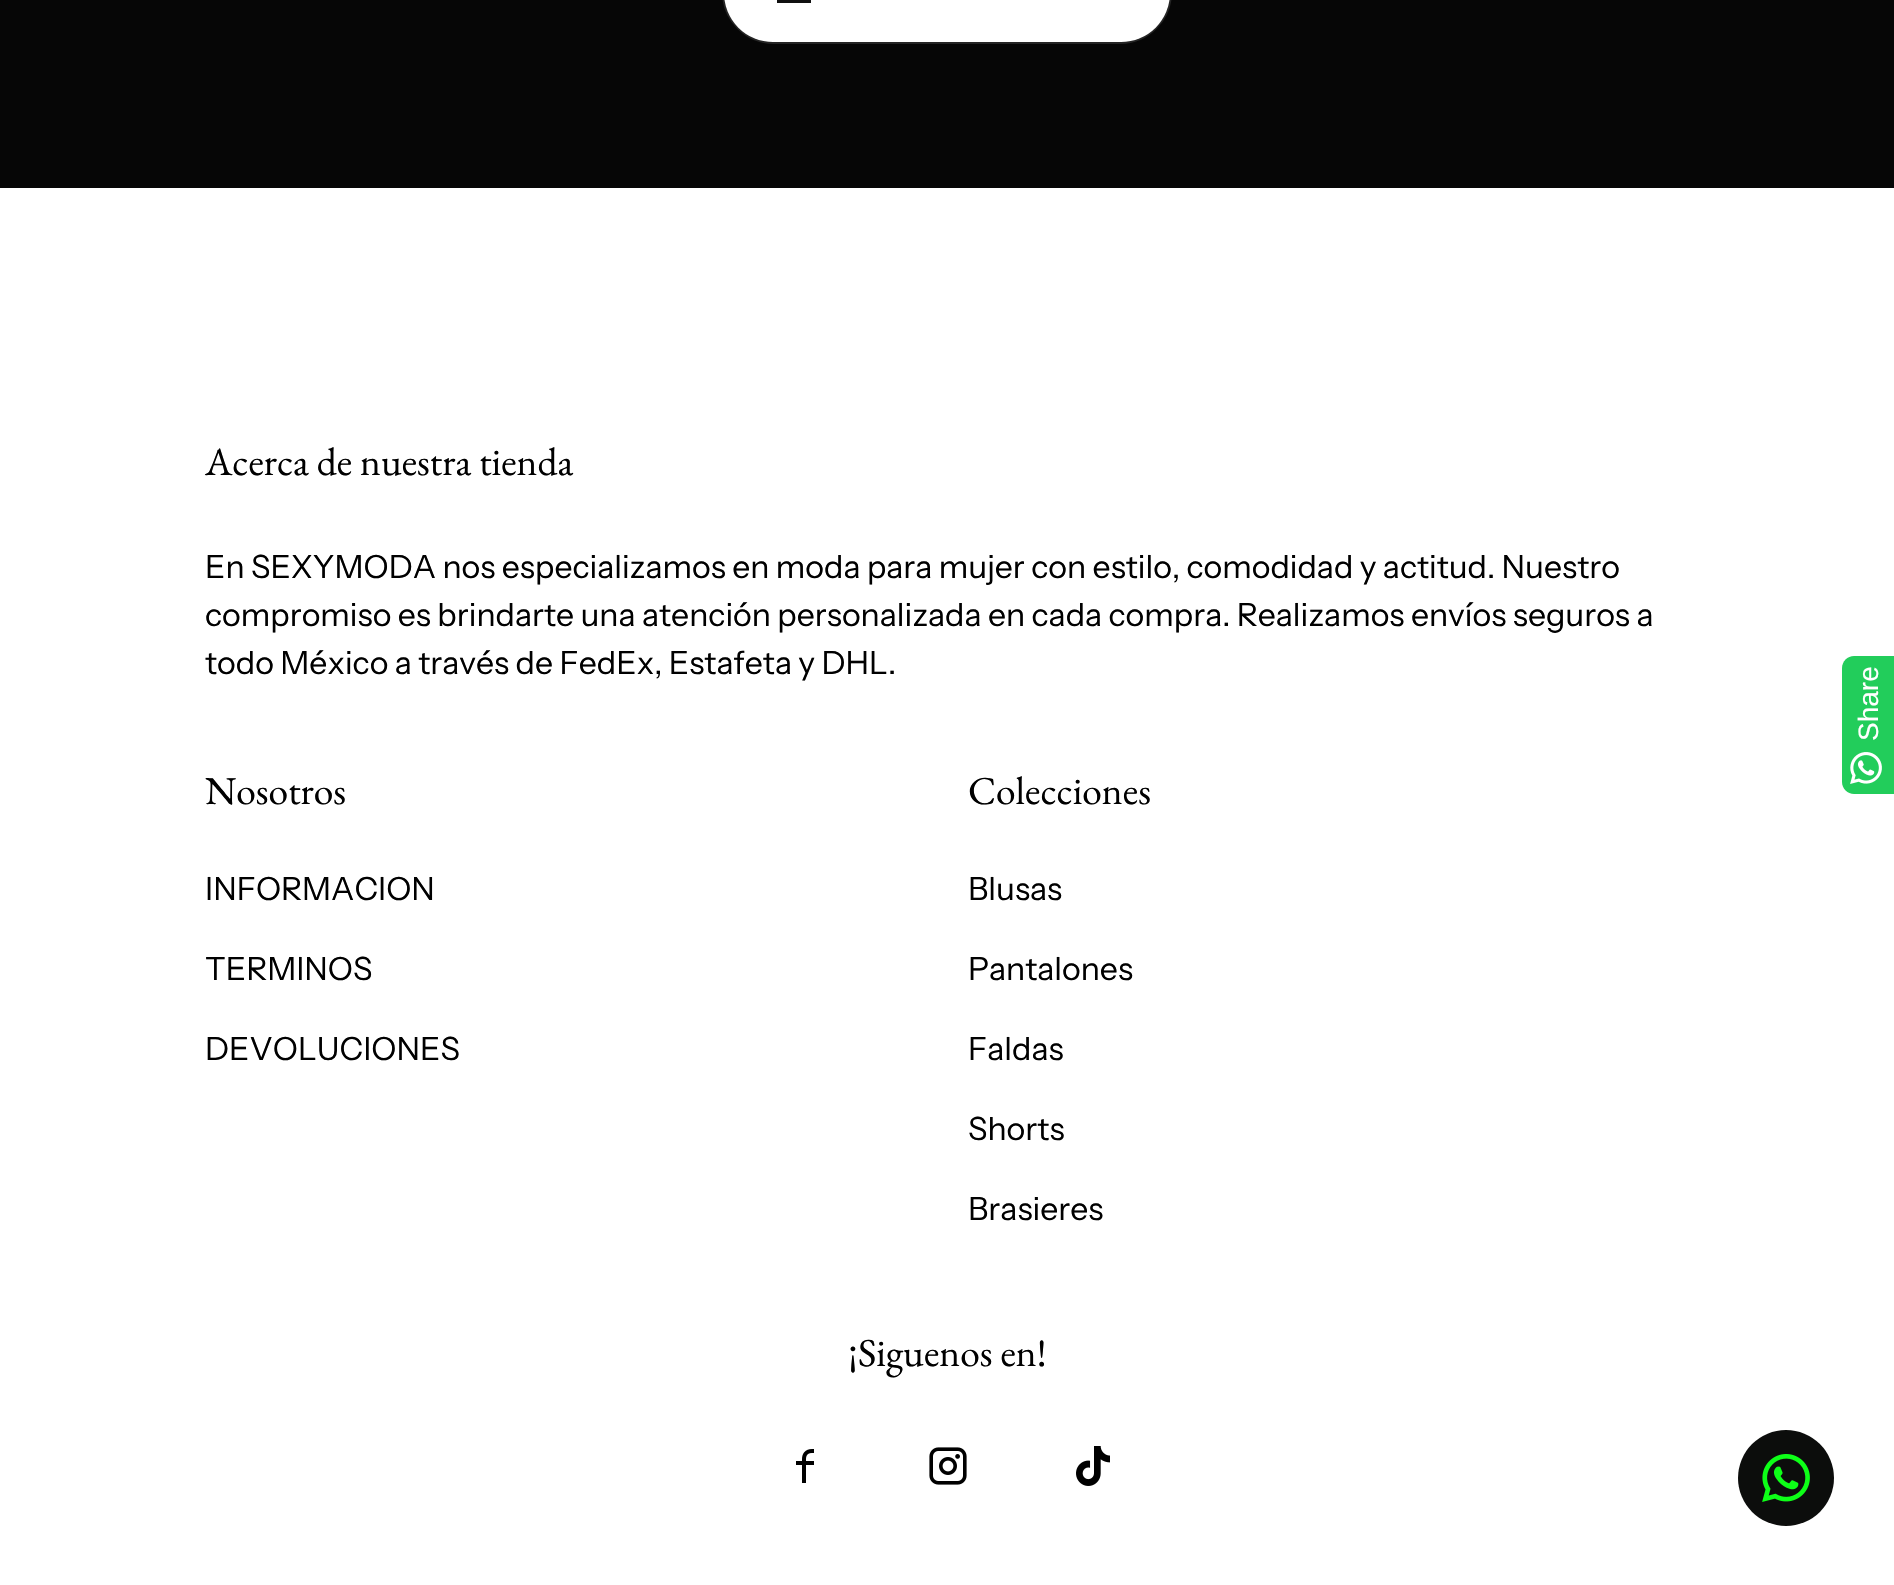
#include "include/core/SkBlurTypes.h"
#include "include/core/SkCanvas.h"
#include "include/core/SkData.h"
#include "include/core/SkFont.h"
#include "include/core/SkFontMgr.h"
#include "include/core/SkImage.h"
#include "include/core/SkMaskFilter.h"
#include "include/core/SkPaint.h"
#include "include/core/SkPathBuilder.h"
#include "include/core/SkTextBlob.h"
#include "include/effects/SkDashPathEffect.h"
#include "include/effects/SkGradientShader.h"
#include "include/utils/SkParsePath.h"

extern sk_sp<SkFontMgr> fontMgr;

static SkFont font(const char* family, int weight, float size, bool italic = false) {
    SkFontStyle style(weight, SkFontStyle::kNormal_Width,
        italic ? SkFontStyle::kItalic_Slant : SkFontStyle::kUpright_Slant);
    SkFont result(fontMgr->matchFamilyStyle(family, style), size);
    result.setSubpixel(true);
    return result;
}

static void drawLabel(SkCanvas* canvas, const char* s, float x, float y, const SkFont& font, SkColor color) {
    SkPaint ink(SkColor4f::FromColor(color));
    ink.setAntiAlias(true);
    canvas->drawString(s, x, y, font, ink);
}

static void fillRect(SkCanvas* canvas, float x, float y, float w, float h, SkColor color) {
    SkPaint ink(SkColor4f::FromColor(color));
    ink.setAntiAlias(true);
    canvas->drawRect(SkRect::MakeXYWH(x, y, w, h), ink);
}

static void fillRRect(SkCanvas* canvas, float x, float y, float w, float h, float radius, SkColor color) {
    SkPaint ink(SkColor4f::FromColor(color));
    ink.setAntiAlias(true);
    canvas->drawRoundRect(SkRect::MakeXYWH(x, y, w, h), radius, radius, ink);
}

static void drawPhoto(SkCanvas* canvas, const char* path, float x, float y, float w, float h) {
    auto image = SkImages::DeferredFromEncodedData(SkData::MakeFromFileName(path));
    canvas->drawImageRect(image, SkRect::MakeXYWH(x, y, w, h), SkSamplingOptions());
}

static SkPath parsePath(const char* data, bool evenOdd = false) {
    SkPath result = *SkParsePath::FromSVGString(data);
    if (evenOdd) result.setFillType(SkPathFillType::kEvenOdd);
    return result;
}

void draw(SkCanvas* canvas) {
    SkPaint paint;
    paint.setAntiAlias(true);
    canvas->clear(0xFF060606);
    paint.setStroke(true);
    paint.setStrokeWidth(2);
    paint.setColor(0xFF242424);
    canvas->drawRoundRect(SkRect::MakeXYWH(723, -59, 448, 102), 57, 57, paint);
    fillRRect(canvas, 724, -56, 446, 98, 56, 0xFFFFFFFF);
    fillRect(canvas, 777, 0, 34, 3, 0xFF101010);
    fillRect(canvas, 0, 188, 1894, 1397, 0xFFFFFFFF);
    SkFont font1 = font("EB Garamond", 400, 39.5f);
    drawLabel(canvas, "Acerca de nuestra tienda", 205, 475, font1, 0xFF000000);
    SkFont font2 = font("Instrument Sans", 400, 32);
    drawLabel(canvas, "En SEXYMODA nos especializamos en moda para mujer con estilo, comodidad y actitud. Nuestro", 205, 578, font2, 0xFF000000);
    drawLabel(canvas, "compromiso es brindarte una atención personalizada en cada compra. Realizamos envíos seguros a", 205, 626, font2, 0xFF000000);
    drawLabel(canvas, "todo México a través de FedEx, Estafeta y DHL.", 205, 674, font2, 0xFF000000);
    drawLabel(canvas, "Nosotros", 205, 804, font1, 0xFF000000);
    drawLabel(canvas, "INFORMACION", 205, 900, font2, 0xFF000000);
    drawLabel(canvas, "TERMINOS", 205, 980, font2, 0xFF000000);
    drawLabel(canvas, "DEVOLUCIONES", 205, 1060, font2, 0xFF000000);
    drawLabel(canvas, "Colecciones", 968, 804, font1, 0xFF000000);
    drawLabel(canvas, "Blusas", 968, 900, font2, 0xFF000000);
    drawLabel(canvas, "Pantalones", 968, 980, font2, 0xFF000000);
    drawLabel(canvas, "Faldas", 968, 1060, font2, 0xFF000000);
    drawLabel(canvas, "Shorts", 968, 1140, font2, 0xFF000000);
    drawLabel(canvas, "Brasieres", 968, 1220, font2, 0xFF000000);
    drawLabel(canvas, "¡Siguenos en!", 848, 1366, font1, 0xFF000000);
    drawPhoto(canvas, "assets/img1.png", 796, 1449, 18, 34);
    drawPhoto(canvas, "assets/img2.png", 929, 1447, 38, 38);
    drawPhoto(canvas, "assets/img3.png", 1076, 1446, 34, 40);
    paint.setStroke(false);
    paint.setColor(0xFF22CD5B);
    canvas->drawPath(parsePath("M1854 656H1894V794H1854C1847.5 794 1842 788.5 1842 782V668C1842 661.5 1847.5 656 1854 656Z"), paint);
    SkFont font3 = font("Liberation Sans", 400, 28);
    canvas->save();
    canvas->rotate(-90, 1878, 741);
    drawLabel(canvas, "Share", 1878, 741, font3, 0xFFFFFFFF);
    canvas->restore();
    drawPhoto(canvas, "assets/img4.png", 1850, 752, 32, 32);
    paint.setColor(0xFF0C0D0C);
    canvas->drawCircle(1786, 1478, 48, paint);
    drawPhoto(canvas, "assets/img5.png", 1762, 1454, 48, 48);
}
